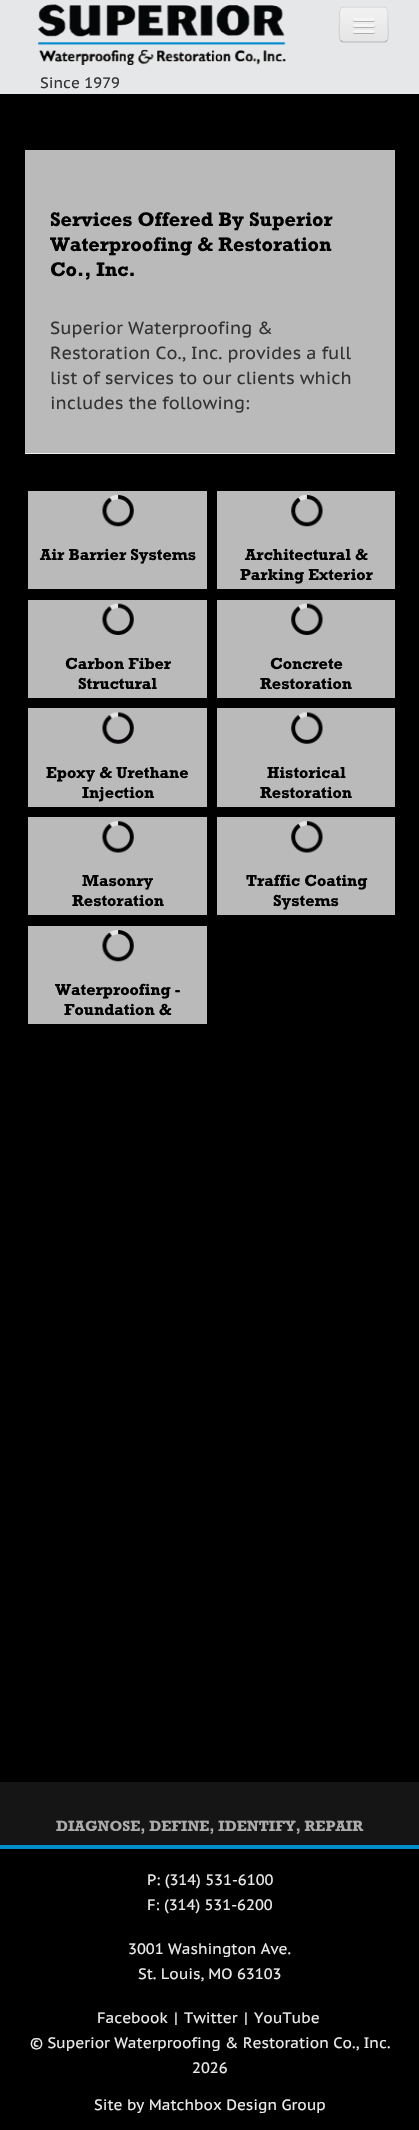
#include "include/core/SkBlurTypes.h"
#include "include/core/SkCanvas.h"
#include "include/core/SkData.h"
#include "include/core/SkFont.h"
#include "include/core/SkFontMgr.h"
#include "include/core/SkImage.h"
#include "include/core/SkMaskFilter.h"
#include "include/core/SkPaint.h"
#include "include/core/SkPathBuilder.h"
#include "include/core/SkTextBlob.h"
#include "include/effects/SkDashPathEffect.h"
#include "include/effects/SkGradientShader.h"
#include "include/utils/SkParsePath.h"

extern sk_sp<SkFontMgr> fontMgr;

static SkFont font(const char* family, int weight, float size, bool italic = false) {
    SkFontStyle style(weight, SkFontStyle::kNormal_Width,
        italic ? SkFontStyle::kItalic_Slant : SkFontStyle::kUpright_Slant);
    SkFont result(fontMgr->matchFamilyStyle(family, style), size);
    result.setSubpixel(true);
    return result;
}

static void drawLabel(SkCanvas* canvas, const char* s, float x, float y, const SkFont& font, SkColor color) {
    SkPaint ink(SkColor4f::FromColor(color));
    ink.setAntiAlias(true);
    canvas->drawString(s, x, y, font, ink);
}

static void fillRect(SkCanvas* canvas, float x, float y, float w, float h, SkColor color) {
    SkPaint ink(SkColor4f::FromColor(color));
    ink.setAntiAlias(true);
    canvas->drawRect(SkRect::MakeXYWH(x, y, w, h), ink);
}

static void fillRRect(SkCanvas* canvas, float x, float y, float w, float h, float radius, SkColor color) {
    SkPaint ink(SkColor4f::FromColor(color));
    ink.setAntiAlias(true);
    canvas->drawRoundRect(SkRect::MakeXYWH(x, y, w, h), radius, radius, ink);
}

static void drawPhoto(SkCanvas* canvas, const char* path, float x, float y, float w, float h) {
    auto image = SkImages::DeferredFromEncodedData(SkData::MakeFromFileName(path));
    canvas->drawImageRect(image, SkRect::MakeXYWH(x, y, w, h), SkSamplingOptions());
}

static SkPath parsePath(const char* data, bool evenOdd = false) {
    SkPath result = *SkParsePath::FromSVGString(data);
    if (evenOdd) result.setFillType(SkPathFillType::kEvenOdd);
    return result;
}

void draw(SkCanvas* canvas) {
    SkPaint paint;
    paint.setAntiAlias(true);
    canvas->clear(0xFF000000);
    fillRect(canvas, 0, 0, 419, 94, 0xFFE6E7E8);
    drawPhoto(canvas, "assets/img1.png", 38, 4, 248, 61);
    fillRRect(canvas, 339, 6, 50, 37, 5, 0xFFEDEDED);
    canvas->save();
    canvas->clipPath(parsePath("M344 6H384C387 6 389 8 389 11V38C389 41 387 43 384 43H344C341 43 339 41 339 38V11C339 8 341 6 344 6Z"), true);
    {
        const SkColor colors[] = {0xFFF2F2F2, 0xFFE5E5E5};
        const float stops[] = {0, 1};
        const SkPoint ends[] = {{364, 7.5f}, {364, 41}};
        paint.setShader(SkGradientShader::MakeLinear(ends, colors, stops, 2, SkTileMode::kClamp));
        paint.setAlpha(255);
    }
    canvas->drawRect(SkRect::MakeXYWH(339, 8, 50, 33), paint);
    canvas->restore();
    paint.setStroke(true);
    paint.setStrokeWidth(1.2f);
    paint.setShader(nullptr);
    paint.setColor(0x40000000);
    canvas->drawPath(parsePath("M387 40.5C386 41.5 385 42 384 42H344C342.5 42 341.5 41.5 340.5 40.5"), paint);
    paint.setColor(0x1A000000);
    canvas->drawPath(parsePath("M340.5 40.5C338 38 339.5 27.5 339.5 24.5V15.5C339.5 12.5 338.5 8 343 7H384.5C389 8 388 12.5 388 15.5V24.5C388 27.5 389.5 38 387 40.5"), paint);
    paint.setStroke(false);
    paint.setColor(0xFFB2B2B2);
    canvas->drawPath(parsePath("M353 20C352 22.5 357 22 357.5 22H370.5C370.5 22 377 22.5 374.5 19.5L374 20Z"), paint);
    fillRRect(canvas, 353, 18, 22, 3, 1.5f, 0xFFF5F5F5);
    paint.setColor(0xFFB0B0B0);
    canvas->drawPath(parsePath("M353 26C352.5 28.5 357 28 357.5 28H370.5C371 28 376.5 28.5 375 25.5L374 26Z"), paint);
    fillRRect(canvas, 353, 24, 22, 3, 1.5f, 0xFFF5F5F5);
    paint.setColor(0xFFAEAEAE);
    canvas->drawPath(parsePath("M353 32.5C352.5 34.5 356.5 34 357.5 34H370.5C371 34 376 34.5 375 32L374 32.5C372 32.5 353.5 32.5 353 32.5Z"), paint);
    fillRRect(canvas, 353, 30, 22, 3, 1.5f, 0xFFF5F5F5);
    SkFont font1 = font("PT Sans Caption", 400, 15);
    drawLabel(canvas, "Since 1979", 40, 88, font1, 0xFF333333);
    fillRect(canvas, 25, 150, 370, 303, 0xFFBABABA);
    fillRect(canvas, 25, 453, 370, 1, 0xFFEEEEEE);
    SkFont font2 = font("Rockwell", 700, 20);
    drawLabel(canvas, "Services Offered By Superior", 50, 226, font2, 0xFF000000);
    drawLabel(canvas, "Waterproofing & Restoration", 50, 251, font2, 0xFF000000);
    drawLabel(canvas, "Co., Inc.", 50, 276, font2, 0xFF000000);
    SkFont font3 = font("PT Sans Caption", 400, 17.5f);
    drawLabel(canvas, "Superior Waterproofing &", 50, 334, font3, 0xFF333333);
    drawLabel(canvas, "Restoration Co., Inc. provides a full", 50, 359, font3, 0xFF333333);
    drawLabel(canvas, "list of services to our clients which", 50, 384, font3, 0xFF333333);
    drawLabel(canvas, "includes the following:", 50, 409, font3, 0xFF333333);
    fillRect(canvas, 28, 491, 179, 98, 0xFFBABABA);
    drawPhoto(canvas, "assets/img2.png", 102, 495, 32, 32);
    SkFont font4 = font("Rockwell", 700, 16.25f);
    drawLabel(canvas, "Air Barrier Systems", 40, 560, font4, 0xFF000000);
    fillRect(canvas, 217, 491, 178, 98, 0xFFBABABA);
    drawPhoto(canvas, "assets/img3.png", 291, 495, 32, 32);
    drawLabel(canvas, "Architectural &", 245, 560, font4, 0xFF000000);
    drawLabel(canvas, "Parking Exterior", 240, 580, font4, 0xFF000000);
    fillRect(canvas, 28, 600, 179, 98, 0xFFBABABA);
    drawPhoto(canvas, "assets/img4.png", 102, 603, 32, 32);
    drawLabel(canvas, "Carbon Fiber", 65, 669, font4, 0xFF000000);
    drawLabel(canvas, "Structural", 78, 689, font4, 0xFF000000);
    fillRect(canvas, 217, 600, 178, 98, 0xFFBABABA);
    drawPhoto(canvas, "assets/img5.png", 291, 603, 32, 32);
    drawLabel(canvas, "Concrete", 270, 669, font4, 0xFF000000);
    drawLabel(canvas, "Restoration", 260, 689, font4, 0xFF000000);
    fillRect(canvas, 28, 708, 179, 99, 0xFFBABABA);
    drawPhoto(canvas, "assets/img6.png", 102, 712, 32, 32);
    drawLabel(canvas, "Epoxy & Urethane", 46, 778, font4, 0xFF000000);
    drawLabel(canvas, "Injection", 82, 798, font4, 0xFF000000);
    fillRect(canvas, 217, 708, 178, 99, 0xFFBABABA);
    drawPhoto(canvas, "assets/img7.png", 291, 712, 32, 32);
    drawLabel(canvas, "Historical", 267, 778, font4, 0xFF000000);
    drawLabel(canvas, "Restoration", 260, 798, font4, 0xFF000000);
    fillRect(canvas, 28, 817, 179, 98, 0xFFBABABA);
    drawPhoto(canvas, "assets/img8.png", 102, 821, 32, 32);
    drawLabel(canvas, "Masonry", 82, 886, font4, 0xFF000000);
    drawLabel(canvas, "Restoration", 72, 906, font4, 0xFF000000);
    fillRect(canvas, 217, 817, 178, 98, 0xFFBABABA);
    drawPhoto(canvas, "assets/img9.png", 291, 821, 32, 32);
    drawLabel(canvas, "Traffic Coating", 246, 886, font4, 0xFF000000);
    drawLabel(canvas, "Systems", 273, 906, font4, 0xFF000000);
    fillRect(canvas, 28, 926, 179, 98, 0xFFBABABA);
    drawPhoto(canvas, "assets/img2.png", 102, 930, 32, 32);
    drawLabel(canvas, "Waterproofing -", 55, 995, font4, 0xFF000000);
    drawLabel(canvas, "Foundation &", 64, 1015, font4, 0xFF000000);
    fillRect(canvas, 0, 1782, 419, 63, 0xFF151515);
    fillRect(canvas, 0, 1845, 419, 4, 0xFF008DCE);
    SkFont font5 = font("Rockwell", 700, 15);
    drawLabel(canvas, "DIAGNOSE, DEFINE, IDENTIFY, REPAIR", 56, 1831, font5, 0xFFABABAB);
    drawLabel(canvas, "P: (314) 531-6100", 147, 1885, font1, 0xFFEBEBEB);
    drawLabel(canvas, "F: (314) 531-6200", 147, 1910, font1, 0xFFEBEBEB);
    drawLabel(canvas, "3001 Washington Ave.", 128, 1954, font1, 0xFFEBEBEB);
    drawLabel(canvas, "St. Louis, MO 63103", 138, 1979, font1, 0xFFEBEBEB);
    drawLabel(canvas, "Facebook", 97, 2023, font1, 0xFFEBEBEB);
    drawLabel(canvas, "|", 174, 2023, font1, 0xFFEBEBEB);
    drawLabel(canvas, "Twitter", 184, 2023, font1, 0xFFEBEBEB);
    drawLabel(canvas, "|", 244, 2023, font1, 0xFFEBEBEB);
    drawLabel(canvas, "YouTube", 254, 2023, font1, 0xFFEBEBEB);
    drawLabel(canvas, "© Superior Waterproofing & Restoration Co., Inc.", 30, 2048, font1, 0xFFEBEBEB);
    drawLabel(canvas, "2026", 192, 2073, font1, 0xFFEBEBEB);
    drawLabel(canvas, "Site by Matchbox Design Group", 94, 2110, font1, 0xFFEBEBEB);
}
